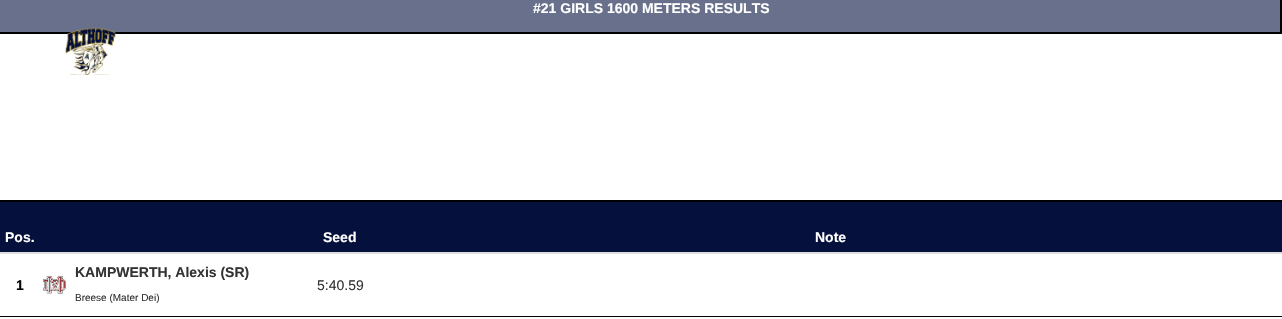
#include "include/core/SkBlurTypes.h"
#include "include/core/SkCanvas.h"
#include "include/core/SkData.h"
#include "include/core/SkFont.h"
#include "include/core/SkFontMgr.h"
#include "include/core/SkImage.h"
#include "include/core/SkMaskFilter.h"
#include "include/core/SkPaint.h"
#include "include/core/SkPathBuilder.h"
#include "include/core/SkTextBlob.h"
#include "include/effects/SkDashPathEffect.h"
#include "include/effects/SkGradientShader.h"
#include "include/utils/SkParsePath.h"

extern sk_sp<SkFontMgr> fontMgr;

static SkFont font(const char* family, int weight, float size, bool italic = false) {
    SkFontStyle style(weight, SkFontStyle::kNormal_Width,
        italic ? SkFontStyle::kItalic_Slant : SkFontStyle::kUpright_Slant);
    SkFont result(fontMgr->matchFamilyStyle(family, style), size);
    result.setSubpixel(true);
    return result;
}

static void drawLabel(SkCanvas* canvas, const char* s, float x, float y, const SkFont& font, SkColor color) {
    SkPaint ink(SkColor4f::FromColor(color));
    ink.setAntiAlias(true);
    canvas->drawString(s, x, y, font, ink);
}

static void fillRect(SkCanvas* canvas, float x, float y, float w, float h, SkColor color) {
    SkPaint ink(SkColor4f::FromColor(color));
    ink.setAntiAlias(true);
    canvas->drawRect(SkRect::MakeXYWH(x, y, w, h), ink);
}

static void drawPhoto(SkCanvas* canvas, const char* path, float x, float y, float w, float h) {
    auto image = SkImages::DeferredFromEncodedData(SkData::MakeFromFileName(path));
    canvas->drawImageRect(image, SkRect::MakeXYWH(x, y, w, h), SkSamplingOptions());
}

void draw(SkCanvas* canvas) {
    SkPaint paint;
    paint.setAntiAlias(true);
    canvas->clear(0xFFFFFFFF);
    fillRect(canvas, 0, 32, 1282, 2, 0xFF000000);
    fillRect(canvas, 0, 0, 1280, 32, 0xFF69708B);
    fillRect(canvas, 1280, 0, 2, 32, 0xFF000000);
    SkFont font1 = font("Liberation Sans", 700, 14);
    drawLabel(canvas, "#21 GIRLS 1600 METERS RESULTS", 533, 13, font1, 0xFFFFFFFF);
    drawPhoto(canvas, "assets/img1.png", 65, 27, 51, 48);
    fillRect(canvas, 0, 200, 1282, 2, 0xFF000000);
    fillRect(canvas, 0, 202, 1282, 50, 0xFF05103D);
    drawLabel(canvas, "Pos.", 5, 242, font1, 0xFFFFFFFF);
    drawLabel(canvas, "Seed", 323, 242, font1, 0xFFFFFFFF);
    fillRect(canvas, 0, 252, 1282, 2, 0xFFDDDDDD);
    drawLabel(canvas, "Note", 815, 242, font1, 0xFFFFFFFF);
    drawLabel(canvas, "1", 16, 290, font1, 0xFF000000);
    drawPhoto(canvas, "assets/img2.png", 43, 275, 23, 19);
    drawLabel(canvas, "KAMPWERTH, Alexis (SR)", 75, 277, font1, 0xFF333333);
    SkFont font2 = font("Liberation Sans", 400, 10);
    drawLabel(canvas, "Breese (Mater Dei)", 75, 301, font2, 0xFF333333);
    SkFont font3 = font("Liberation Sans", 400, 14);
    drawLabel(canvas, "5:40.59", 317, 290, font3, 0xFF333333);
    fillRect(canvas, 0, 316, 1282, 1, 0xFF000000);
}
